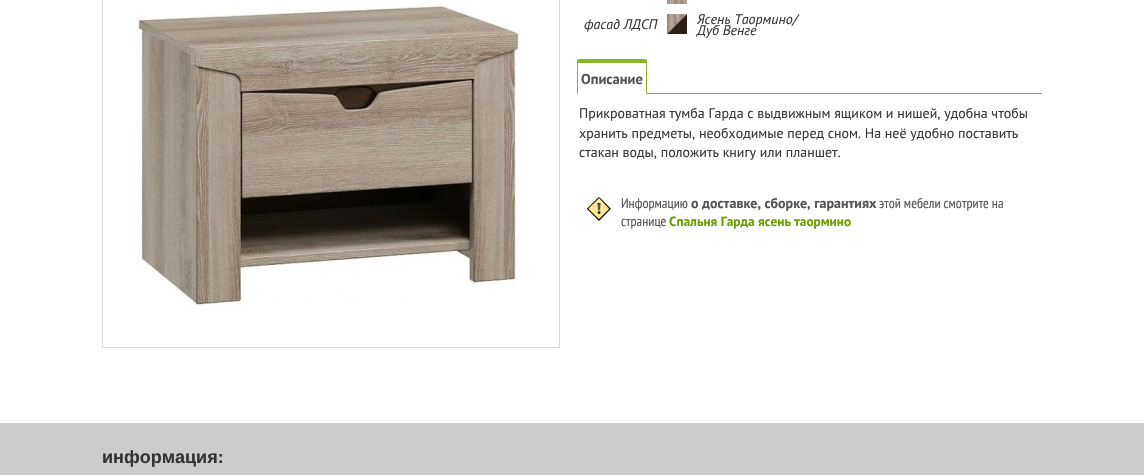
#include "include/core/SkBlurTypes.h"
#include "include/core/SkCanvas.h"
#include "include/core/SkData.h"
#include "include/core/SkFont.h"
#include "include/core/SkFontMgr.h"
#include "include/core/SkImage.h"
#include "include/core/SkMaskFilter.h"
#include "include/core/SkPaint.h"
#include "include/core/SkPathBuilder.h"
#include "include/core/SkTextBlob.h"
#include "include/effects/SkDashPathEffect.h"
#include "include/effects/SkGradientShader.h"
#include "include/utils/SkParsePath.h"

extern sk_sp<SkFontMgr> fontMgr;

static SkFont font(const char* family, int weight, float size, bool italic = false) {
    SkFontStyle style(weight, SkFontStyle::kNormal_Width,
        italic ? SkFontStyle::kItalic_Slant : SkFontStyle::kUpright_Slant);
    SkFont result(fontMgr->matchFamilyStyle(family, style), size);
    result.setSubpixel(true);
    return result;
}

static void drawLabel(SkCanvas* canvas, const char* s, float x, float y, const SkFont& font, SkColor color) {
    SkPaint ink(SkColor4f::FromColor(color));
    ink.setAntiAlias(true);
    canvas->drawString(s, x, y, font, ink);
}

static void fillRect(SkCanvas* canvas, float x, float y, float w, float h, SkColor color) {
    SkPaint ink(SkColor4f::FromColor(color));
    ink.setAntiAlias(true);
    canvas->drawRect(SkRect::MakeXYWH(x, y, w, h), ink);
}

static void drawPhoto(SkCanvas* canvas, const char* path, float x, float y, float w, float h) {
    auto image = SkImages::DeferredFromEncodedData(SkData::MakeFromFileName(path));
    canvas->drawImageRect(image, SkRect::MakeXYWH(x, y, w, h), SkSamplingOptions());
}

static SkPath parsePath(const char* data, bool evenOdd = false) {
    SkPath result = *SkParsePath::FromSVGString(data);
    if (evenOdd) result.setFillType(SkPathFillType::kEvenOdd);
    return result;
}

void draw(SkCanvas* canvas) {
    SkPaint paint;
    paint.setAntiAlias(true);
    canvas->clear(0xFFFFFFFF);
    paint.setStroke(true);
    paint.setStrokeWidth(1);
    paint.setColor(0xFFDBDBDB);
    canvas->drawRect(SkRect::MakeXYWH(102.5f, -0.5f, 457, 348), paint);
    drawPhoto(canvas, "assets/img1.png", 136, 3, 384, 304);
    drawPhoto(canvas, "assets/img2.png", 667, 0, 20, 4);
    SkFont font1 = font("PT Sans", 400, 14, true);
    drawLabel(canvas, "фасад ЛДСП", 584, 29, font1, 0xFF393939);
    drawPhoto(canvas, "assets/img3.png", 667, 14, 20, 20);
    drawLabel(canvas, "Ясень Таормино/", 697, 24, font1, 0xFF393939);
    drawLabel(canvas, "Дуб Венге", 697, 35, font1, 0xFF393939);
    fillRect(canvas, 577, 93, 465, 1, 0xFF87B42A);
    paint.setStroke(false);
    paint.setColor(0xFF87B42A);
    canvas->drawPath(parsePath("M579 59L577 60L578 63H646L647 60L645 59Z"), paint);
    canvas->drawPath(parsePath("M647 94V61L646.5 60L646 63V93Z"), paint);
    paint.setColor(0xFFFFFFFF);
    canvas->drawPath(parsePath("M647 94L646 93H578L577 94Z"), paint);
    paint.setColor(0xFF87B42A);
    canvas->drawPath(parsePath("M577 94L578 93V63L577.5 60L577 61Z"), paint);
    SkFont font2 = font("PT Sans", 700, 14.5f);
    drawLabel(canvas, "Описание", 581, 84, font2, 0xFF545454);
    SkFont font3 = font("PT Sans", 400, 13.95f);
    drawLabel(canvas, "Прикроватная тумба Гарда с выдвижным ящиком и нишей, удобна чтобы", 579, 118, font3, 0xFF393939);
    drawLabel(canvas, "хранить предметы, необходимые перед сном. На неё удобно поставить", 579, 138, font3, 0xFF393939);
    drawLabel(canvas, "стакан воды, положить книгу или планшет.", 579, 157, font3, 0xFF393939);
    drawPhoto(canvas, "assets/img4.png", 587, 197, 24, 24);
    SkFont font4 = font("PT Sans Narrow", 400, 14);
    drawLabel(canvas, "Информацию", 621, 208, font4, 0xFF545454);
    SkFont font5 = font("PT Sans", 700, 14);
    drawLabel(canvas, "о доставке, сборке, гарантиях", 691, 208, font5, 0xFF545454);
    drawLabel(canvas, "этой мебели смотрите на", 879, 208, font4, 0xFF545454);
    drawLabel(canvas, "странице", 621, 226, font4, 0xFF545454);
    SkFont font6 = font("PT Sans", 700, 13.3f);
    drawLabel(canvas, "Спальня Гарда ясень таормино", 669, 226, font6, 0xFF6C9B00);
    fillRect(canvas, 0, 423, 1144, 52, 0xFFCDCCCA);
    SkFont font7 = font("Liberation Sans", 700, 18);
    drawLabel(canvas, "информация:", 102, 463, font7, 0xFF333333);
}
